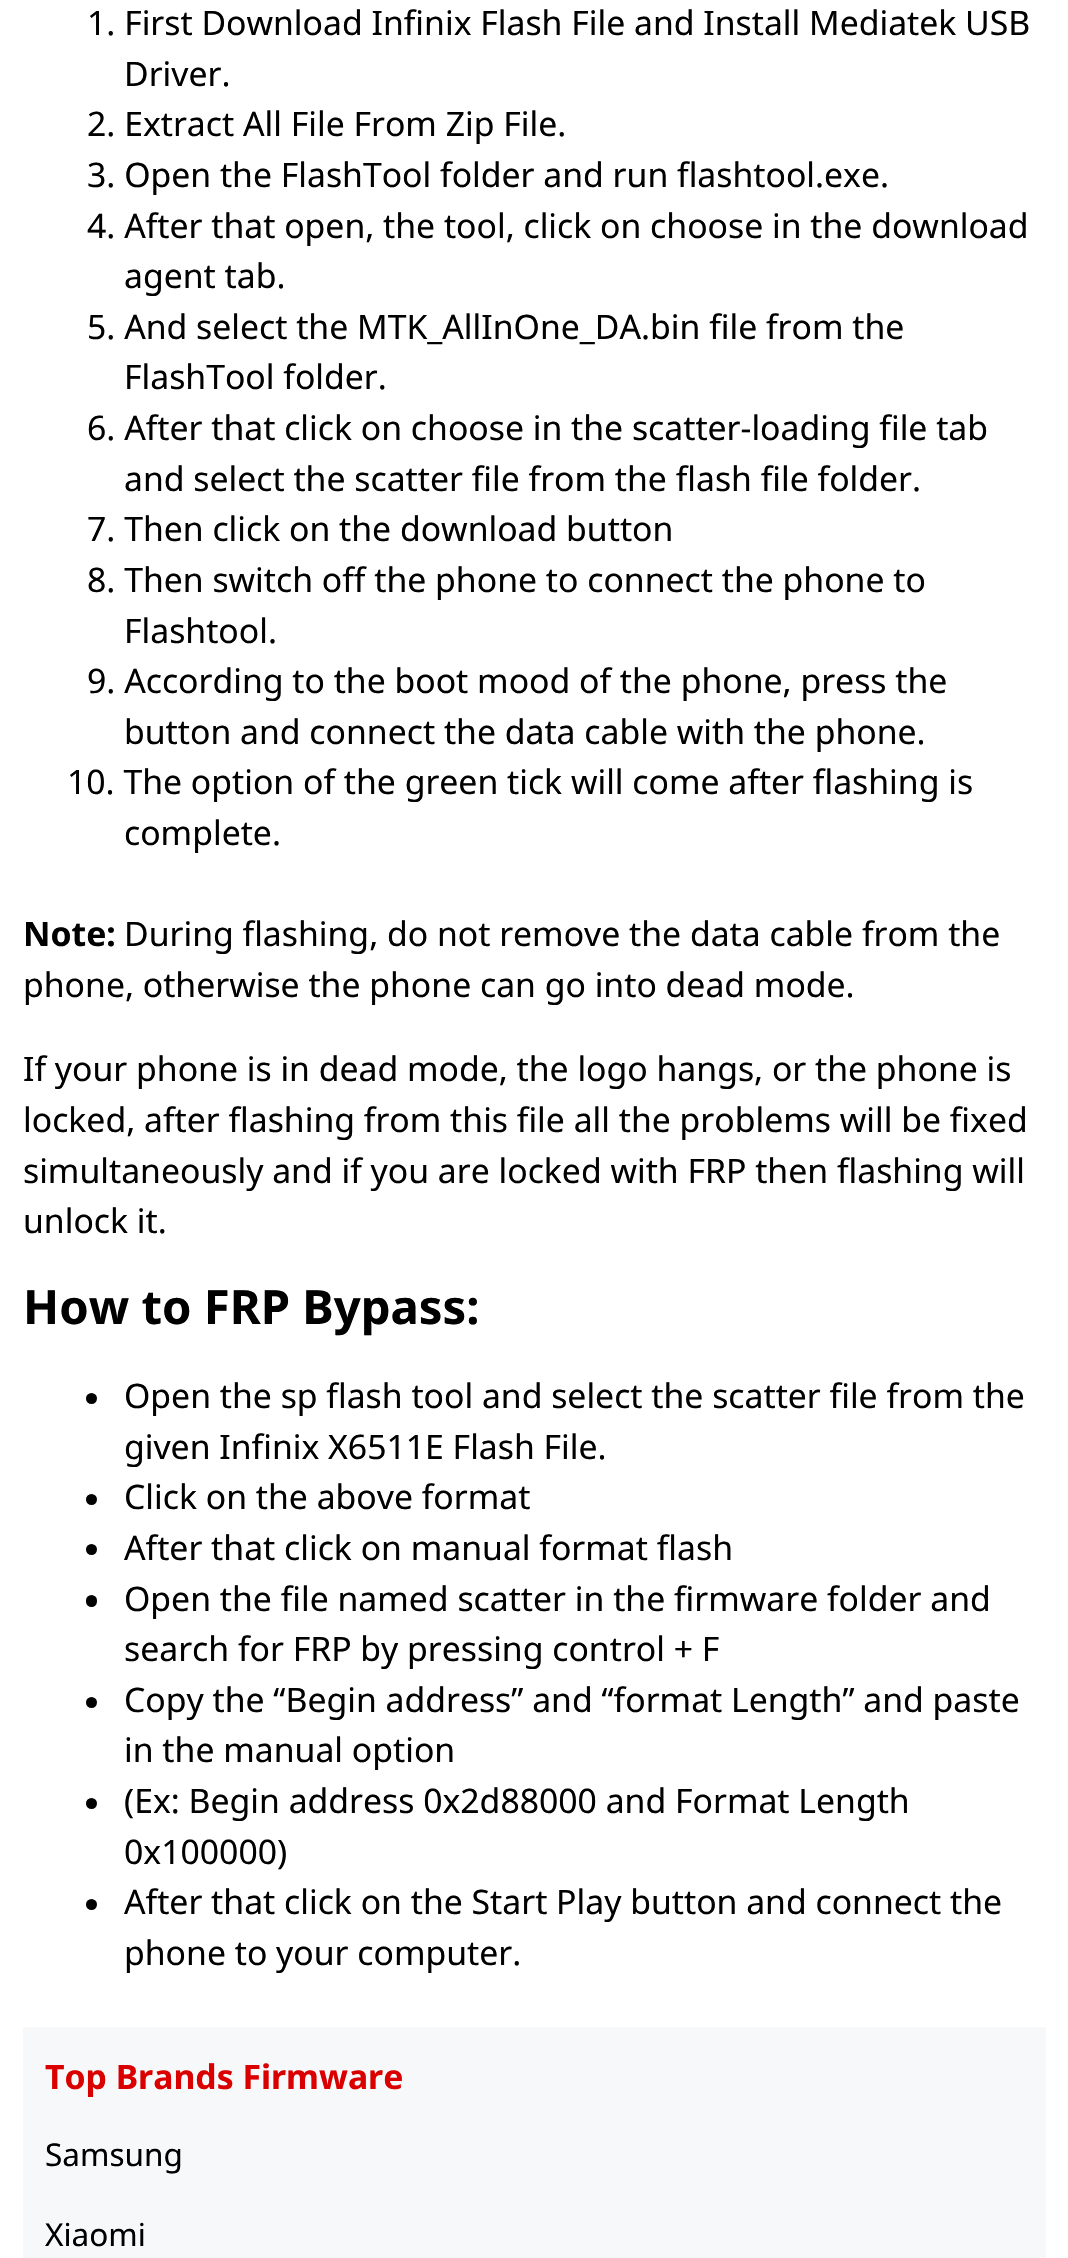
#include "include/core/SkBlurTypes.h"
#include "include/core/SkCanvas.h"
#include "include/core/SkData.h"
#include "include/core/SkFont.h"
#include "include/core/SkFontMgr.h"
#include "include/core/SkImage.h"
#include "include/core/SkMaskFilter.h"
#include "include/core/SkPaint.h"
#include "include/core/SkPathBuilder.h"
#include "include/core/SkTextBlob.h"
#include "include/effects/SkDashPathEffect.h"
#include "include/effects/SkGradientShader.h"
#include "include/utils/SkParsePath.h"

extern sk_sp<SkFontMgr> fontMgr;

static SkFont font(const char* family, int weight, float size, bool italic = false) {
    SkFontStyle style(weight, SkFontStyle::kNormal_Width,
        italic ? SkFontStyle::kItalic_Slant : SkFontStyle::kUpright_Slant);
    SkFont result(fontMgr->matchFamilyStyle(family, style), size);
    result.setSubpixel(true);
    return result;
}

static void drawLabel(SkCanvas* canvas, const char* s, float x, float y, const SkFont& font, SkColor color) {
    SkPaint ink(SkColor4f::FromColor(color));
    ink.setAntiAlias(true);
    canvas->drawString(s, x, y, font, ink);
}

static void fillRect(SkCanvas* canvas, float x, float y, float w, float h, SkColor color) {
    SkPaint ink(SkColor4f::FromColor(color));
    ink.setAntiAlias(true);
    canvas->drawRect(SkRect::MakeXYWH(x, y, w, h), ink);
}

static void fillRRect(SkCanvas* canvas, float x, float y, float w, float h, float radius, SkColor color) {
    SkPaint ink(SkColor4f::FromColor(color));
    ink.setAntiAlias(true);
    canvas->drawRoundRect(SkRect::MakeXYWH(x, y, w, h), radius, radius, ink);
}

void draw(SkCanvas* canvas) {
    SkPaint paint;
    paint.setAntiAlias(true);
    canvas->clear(0xFFFFFFFF);
    SkFont font1 = font("Noto Sans", 400, 33.75f);
    drawLabel(canvas, "1. First Download Infinix Flash File and Install Mediatek USB", 87, 35, font1, 0xFF000000);
    drawLabel(canvas, "Driver.", 124, 86, font1, 0xFF000000);
    drawLabel(canvas, "2. Extract All File From Zip File.", 87, 136, font1, 0xFF000000);
    drawLabel(canvas, "3. Open the FlashTool folder and run flashtool.exe.", 87, 187, font1, 0xFF000000);
    drawLabel(canvas, "4. After that open, the tool, click on choose in the download", 87, 238, font1, 0xFF000000);
    drawLabel(canvas, "agent tab.", 124, 288, font1, 0xFF000000);
    drawLabel(canvas, "5. And select the MTK_AllInOne_DA.bin file from the", 87, 339, font1, 0xFF000000);
    drawLabel(canvas, "FlashTool folder.", 124, 389, font1, 0xFF000000);
    drawLabel(canvas, "6. After that click on choose in the scatter-loading file tab", 87, 440, font1, 0xFF000000);
    drawLabel(canvas, "and select the scatter file from the flash file folder.", 124, 491, font1, 0xFF000000);
    drawLabel(canvas, "7. Then click on the download button", 87, 541, font1, 0xFF000000);
    drawLabel(canvas, "8. Then switch off the phone to connect the phone to", 87, 592, font1, 0xFF000000);
    drawLabel(canvas, "Flashtool.", 124, 643, font1, 0xFF000000);
    drawLabel(canvas, "9. According to the boot mood of the phone, press the", 87, 693, font1, 0xFF000000);
    drawLabel(canvas, "button and connect the data cable with the phone.", 124, 744, font1, 0xFF000000);
    drawLabel(canvas, "10. The option of the green tick will come after flashing is", 67, 794, font1, 0xFF000000);
    drawLabel(canvas, "complete.", 124, 845, font1, 0xFF000000);
    SkFont font2 = font("Noto Sans", 700, 33.75f);
    drawLabel(canvas, "Note:", 23, 946, font2, 0xFF000000);
    drawLabel(canvas, "During flashing, do not remove the data cable from the", 124, 946, font1, 0xFF000000);
    drawLabel(canvas, "phone, otherwise the phone can go into dead mode.", 23, 997, font1, 0xFF000000);
    drawLabel(canvas, "If your phone is in dead mode, the logo hangs, or the phone is", 23, 1081, font1, 0xFF000000);
    drawLabel(canvas, "locked, after flashing from this file all the problems will be fixed", 23, 1132, font1, 0xFF000000);
    drawLabel(canvas, "simultaneously and if you are locked with FRP then flashing will", 23, 1183, font1, 0xFF000000);
    drawLabel(canvas, "unlock it.", 23, 1233, font1, 0xFF000000);
    SkFont font3 = font("Noto Sans", 700, 47.25f);
    drawLabel(canvas, "How to FRP Bypass:", 23, 1324, font3, 0xFF000000);
    paint.setColor(0xFF000000);
    canvas->drawCircle(91.5f, 1398.5f, 5.5f, paint);
    drawLabel(canvas, "Open the sp flash tool and select the scatter file from the", 124, 1408, font1, 0xFF000000);
    drawLabel(canvas, "given Infinix X6511E Flash File.", 124, 1459, font1, 0xFF000000);
    canvas->drawCircle(91.5f, 1499.5f, 5.5f, paint);
    drawLabel(canvas, "Click on the above format", 124, 1509, font1, 0xFF000000);
    canvas->drawCircle(91.5f, 1549.5f, 5.5f, paint);
    drawLabel(canvas, "After that click on manual format flash", 124, 1560, font1, 0xFF000000);
    fillRRect(canvas, 86, 1595, 11, 12, 5.5f, 0xFF000000);
    drawLabel(canvas, "Open the file named scatter in the firmware folder and", 124, 1611, font1, 0xFF000000);
    drawLabel(canvas, "search for FRP by pressing control + F", 124, 1661, font1, 0xFF000000);
    canvas->drawCircle(91.5f, 1702.5f, 5.5f, paint);
    drawLabel(canvas, "Copy the “Begin address” and “format Length” and paste", 124, 1712, font1, 0xFF000000);
    drawLabel(canvas, "in the manual option", 124, 1762, font1, 0xFF000000);
    canvas->drawCircle(91.5f, 1803.5f, 5.5f, paint);
    drawLabel(canvas, "(Ex: Begin address 0x2d88000 and Format Length", 124, 1813, font1, 0xFF000000);
    drawLabel(canvas, "0x100000)", 124, 1864, font1, 0xFF000000);
    canvas->drawCircle(91.5f, 1904.5f, 5.5f, paint);
    drawLabel(canvas, "After that click on the Start Play button and connect the", 124, 1914, font1, 0xFF000000);
    drawLabel(canvas, "phone to your computer.", 124, 1965, font1, 0xFF000000);
    fillRect(canvas, 23, 2027, 1023, 231, 0xFFF7F8F9);
    drawLabel(canvas, "Top Brands Firmware", 45, 2089, font2, 0xFFDA0000);
    SkFont font4 = font("Noto Sans", 400, 31.5f);
    drawLabel(canvas, "Samsung", 45, 2166, font4, 0xFF000000);
    drawLabel(canvas, "Xiaomi", 45, 2246, font4, 0xFF000000);
}
